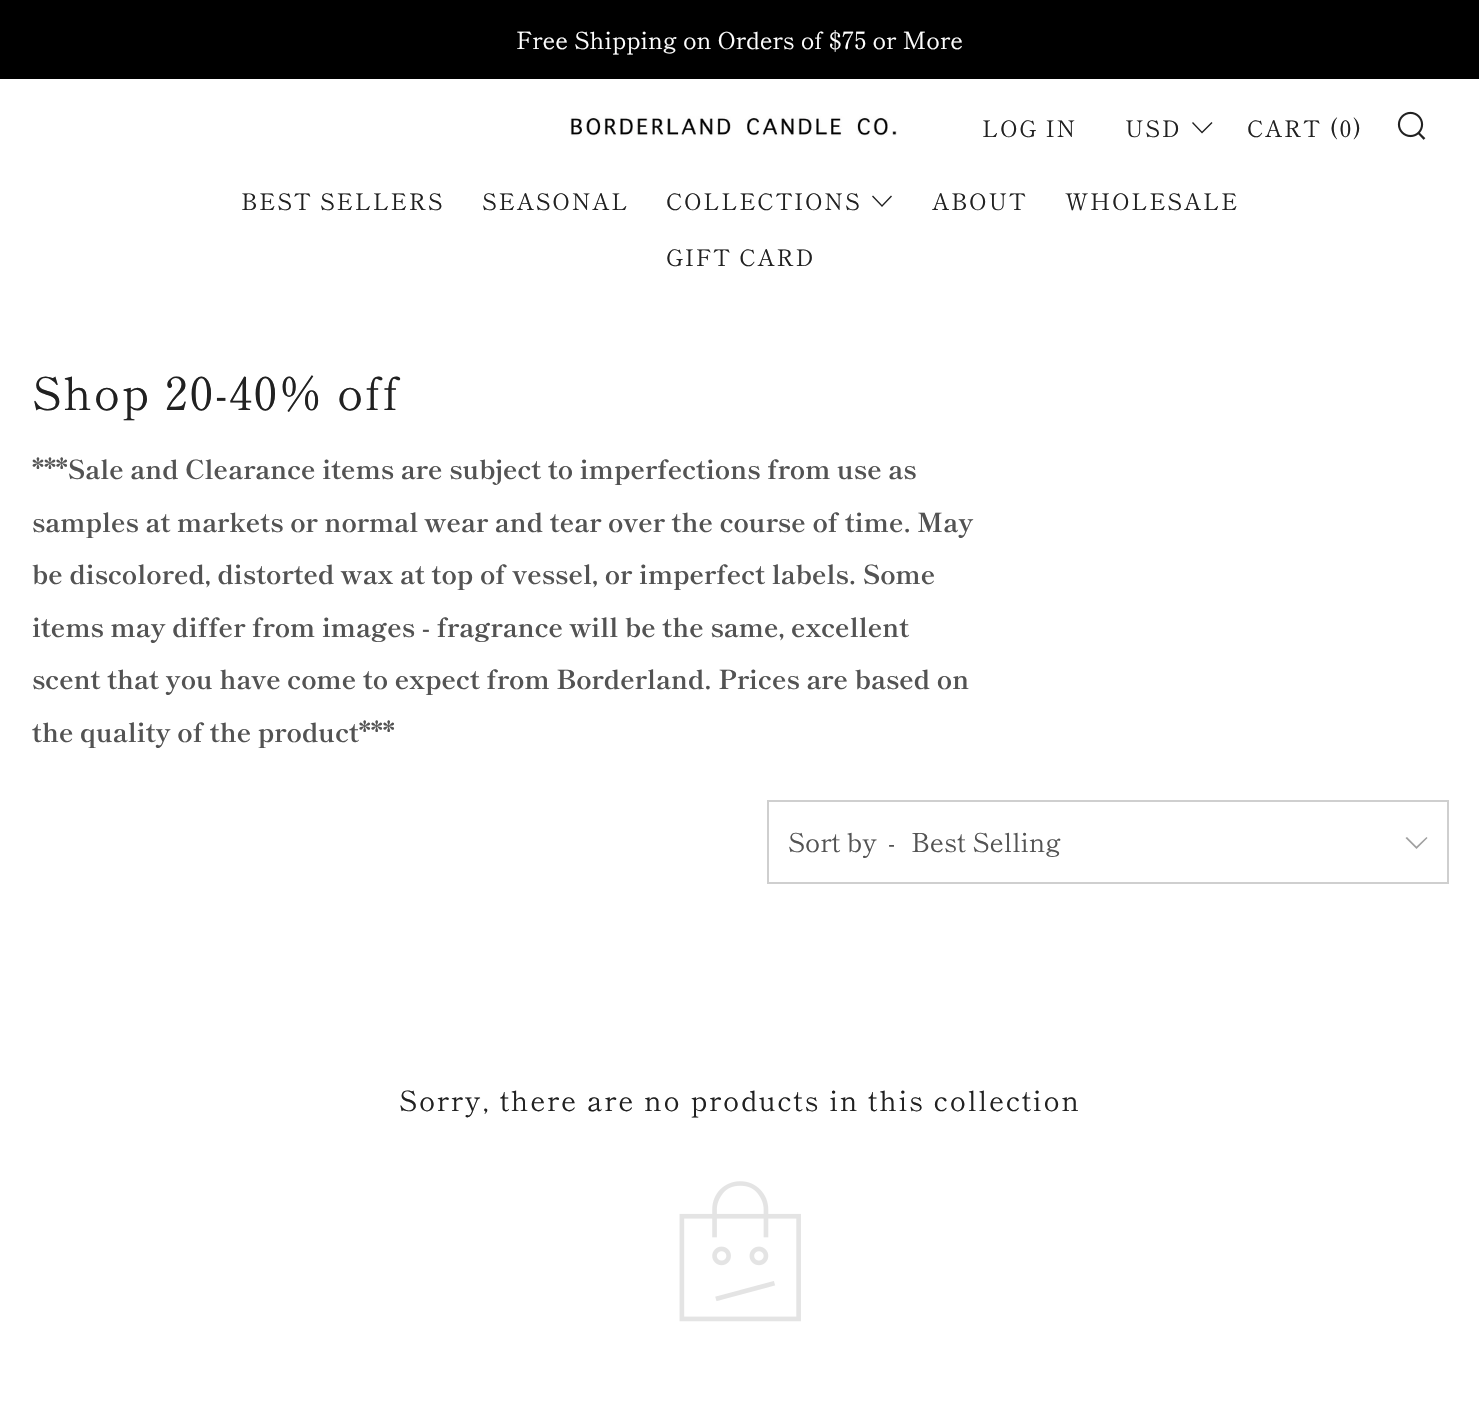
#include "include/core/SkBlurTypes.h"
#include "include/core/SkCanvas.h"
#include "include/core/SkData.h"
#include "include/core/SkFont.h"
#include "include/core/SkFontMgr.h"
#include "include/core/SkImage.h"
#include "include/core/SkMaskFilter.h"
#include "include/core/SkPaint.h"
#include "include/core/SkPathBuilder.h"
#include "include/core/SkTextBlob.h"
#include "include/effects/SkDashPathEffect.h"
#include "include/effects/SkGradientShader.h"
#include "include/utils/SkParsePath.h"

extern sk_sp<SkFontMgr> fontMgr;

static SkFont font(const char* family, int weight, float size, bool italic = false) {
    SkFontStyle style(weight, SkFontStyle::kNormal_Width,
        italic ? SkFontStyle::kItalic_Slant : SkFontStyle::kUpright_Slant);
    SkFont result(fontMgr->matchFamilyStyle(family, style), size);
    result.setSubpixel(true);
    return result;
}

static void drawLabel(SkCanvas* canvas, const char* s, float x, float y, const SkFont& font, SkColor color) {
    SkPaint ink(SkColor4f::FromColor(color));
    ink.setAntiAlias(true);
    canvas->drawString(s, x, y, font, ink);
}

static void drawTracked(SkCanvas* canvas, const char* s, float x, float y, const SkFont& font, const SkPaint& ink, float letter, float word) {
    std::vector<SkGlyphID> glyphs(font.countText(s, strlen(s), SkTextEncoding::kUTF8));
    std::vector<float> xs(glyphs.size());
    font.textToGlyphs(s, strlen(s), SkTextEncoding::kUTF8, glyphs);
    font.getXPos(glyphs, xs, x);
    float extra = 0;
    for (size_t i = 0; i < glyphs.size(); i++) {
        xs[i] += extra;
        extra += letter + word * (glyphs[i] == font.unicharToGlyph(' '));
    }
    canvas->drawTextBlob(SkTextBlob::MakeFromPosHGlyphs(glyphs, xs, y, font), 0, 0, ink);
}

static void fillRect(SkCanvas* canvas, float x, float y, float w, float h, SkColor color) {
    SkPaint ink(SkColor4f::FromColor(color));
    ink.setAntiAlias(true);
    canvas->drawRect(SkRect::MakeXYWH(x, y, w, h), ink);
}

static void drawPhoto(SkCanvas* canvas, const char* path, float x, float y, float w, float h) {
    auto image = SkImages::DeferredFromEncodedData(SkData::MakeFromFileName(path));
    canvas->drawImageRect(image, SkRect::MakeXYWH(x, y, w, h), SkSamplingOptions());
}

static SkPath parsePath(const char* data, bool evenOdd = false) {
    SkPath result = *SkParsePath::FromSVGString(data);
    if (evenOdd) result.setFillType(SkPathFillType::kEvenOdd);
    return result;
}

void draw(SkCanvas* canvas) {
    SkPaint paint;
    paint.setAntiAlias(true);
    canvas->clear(0xFFFFFFFF);
    fillRect(canvas, 0, 0, 1479, 79, 0xFF000000);
    SkFont font1 = font("Shippori Mincho", 400, 23.6f);
    drawLabel(canvas, "Free Shipping on Orders of $75 or More", 516, 49, font1, 0xFFFFFFFF);
    drawPhoto(canvas, "assets/img1.png", 570, 116, 327, 21);
    SkFont font2 = font("Shippori Mincho", 400, 22.75f);
    paint.setColor(0xFF212121);
    drawTracked(canvas, "LOG IN", 982, 137, font2, paint, 1.75f, 0);
    drawTracked(canvas, "USD", 1125, 137, font2, paint, 1.75f, 0);
    canvas->drawPath(parsePath("M1193 122L1192 123L1202 133.5L1212.5 123L1211.5 122L1202 131.5Z"), paint);
    drawTracked(canvas, "CART (0)", 1247, 137, font2, paint, 1.75f, 0);
    drawPhoto(canvas, "assets/img2.png", 1397, 111, 29, 29);
    drawTracked(canvas, "BEST SELLERS", 241, 210, font2, paint, 1.75f, 0);
    drawTracked(canvas, "SEASONAL", 482, 210, font2, paint, 1.75f, 0);
    drawTracked(canvas, "COLLECTIONS", 666, 210, font2, paint, 1.75f, 0);
    canvas->drawPath(parsePath("M873 195.5L872 196.5L882 207L892 196.5L891 195.5L882 205Z"), paint);
    drawTracked(canvas, "ABOUT", 932, 210, font2, paint, 1.75f, 0);
    drawTracked(canvas, "WHOLESALE", 1065, 210, font2, paint, 1.75f, 0);
    drawTracked(canvas, "GIFT CARD", 666, 266, font2, paint, 1.75f, 0);
    SkFont font3 = font("Shippori Mincho", 400, 45.5f);
    drawTracked(canvas, "Shop 20-40% off", 32, 410, font3, paint, 1.75f, 0);
    SkFont font4 = font("Shippori Mincho", 700, 26.25f);
    drawLabel(canvas, "***Sale and Clearance items are subject to imperfections from use as", 32, 479, font4, 0xFF535353);
    drawLabel(canvas, "samples at markets or normal wear and tear over the course of time. May", 32, 532, font4, 0xFF535353);
    drawLabel(canvas, "be discolored, distorted wax at top of vessel, or imperfect labels. Some", 32, 584, font4, 0xFF535353);
    drawLabel(canvas, "items may differ from images - fragrance will be the same, excellent", 32, 637, font4, 0xFF535353);
    drawLabel(canvas, "scent that you have come to expect from Borderland. Prices are based on", 32, 689, font4, 0xFF535353);
    drawLabel(canvas, "the quality of the product***", 32, 742, font4, 0xFF535353);
    paint.setStroke(true);
    paint.setStrokeWidth(2);
    paint.setColor(0xFFCFCFCF);
    canvas->drawRect(SkRect::MakeXYWH(768, 801, 680, 82), paint);
    SkFont font5 = font("Shippori Mincho", 400, 26.25f);
    drawLabel(canvas, "Sort by", 788, 852, font5, 0xFF535353);
    drawLabel(canvas, "-", 888, 852, font5, 0xFF535353);
    drawLabel(canvas, "Best Selling", 911, 852, font5, 0xFF535353);
    paint.setStroke(false);
    paint.setColor(0xFFA0A0A0);
    canvas->drawPath(parsePath("M1407 837L1405.5 838L1416.5 849L1427.5 838L1426.5 837L1416.5 846.5Z"), paint);
    SkFont font6 = font("Shippori Mincho", 400, 28);
    paint.setColor(0xFF212121);
    drawTracked(canvas, "Sorry, there are no products in this collection", 399, 1111, font6, paint, 1.75f, 0);
    drawPhoto(canvas, "assets/img3.png", 679, 1181, 122, 141);
}
